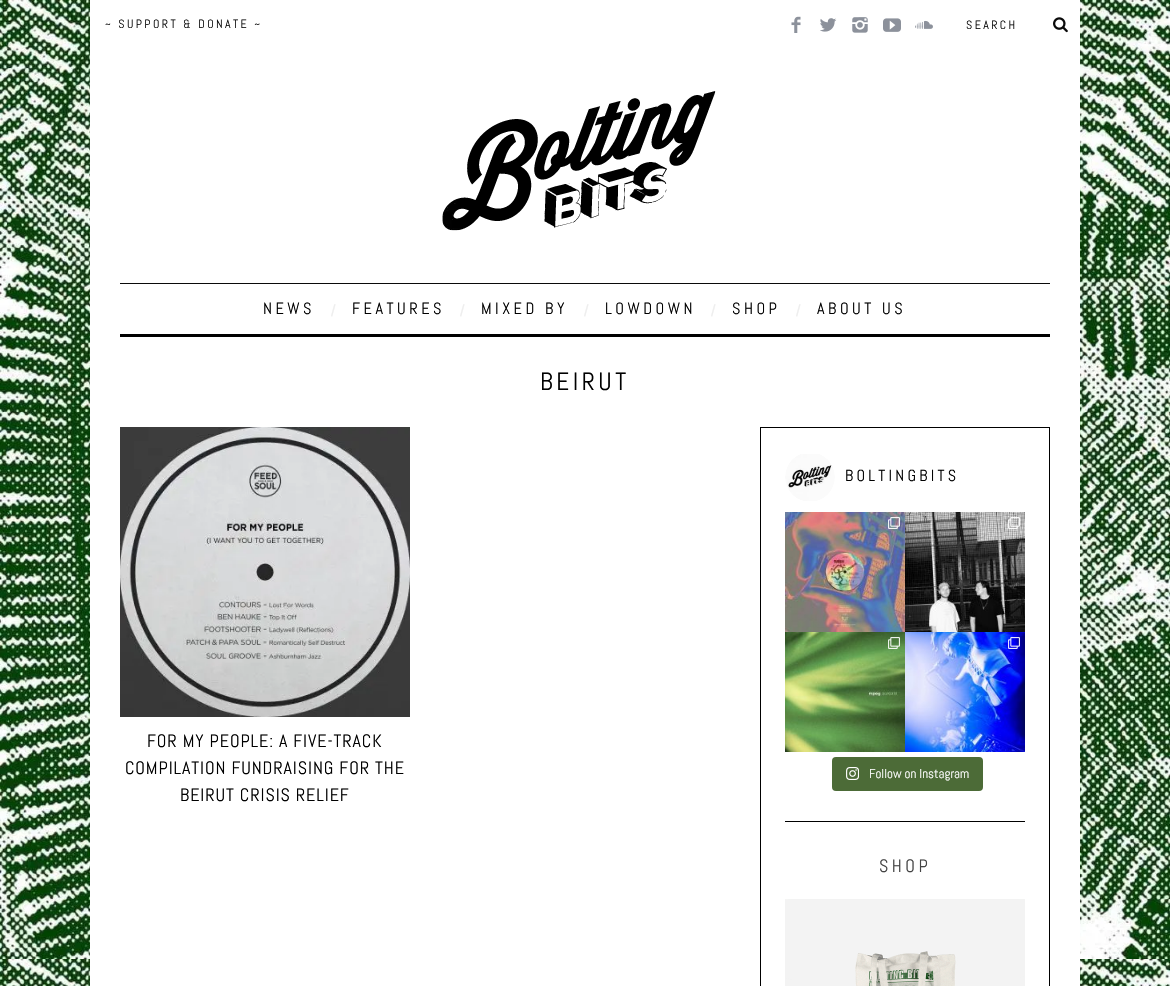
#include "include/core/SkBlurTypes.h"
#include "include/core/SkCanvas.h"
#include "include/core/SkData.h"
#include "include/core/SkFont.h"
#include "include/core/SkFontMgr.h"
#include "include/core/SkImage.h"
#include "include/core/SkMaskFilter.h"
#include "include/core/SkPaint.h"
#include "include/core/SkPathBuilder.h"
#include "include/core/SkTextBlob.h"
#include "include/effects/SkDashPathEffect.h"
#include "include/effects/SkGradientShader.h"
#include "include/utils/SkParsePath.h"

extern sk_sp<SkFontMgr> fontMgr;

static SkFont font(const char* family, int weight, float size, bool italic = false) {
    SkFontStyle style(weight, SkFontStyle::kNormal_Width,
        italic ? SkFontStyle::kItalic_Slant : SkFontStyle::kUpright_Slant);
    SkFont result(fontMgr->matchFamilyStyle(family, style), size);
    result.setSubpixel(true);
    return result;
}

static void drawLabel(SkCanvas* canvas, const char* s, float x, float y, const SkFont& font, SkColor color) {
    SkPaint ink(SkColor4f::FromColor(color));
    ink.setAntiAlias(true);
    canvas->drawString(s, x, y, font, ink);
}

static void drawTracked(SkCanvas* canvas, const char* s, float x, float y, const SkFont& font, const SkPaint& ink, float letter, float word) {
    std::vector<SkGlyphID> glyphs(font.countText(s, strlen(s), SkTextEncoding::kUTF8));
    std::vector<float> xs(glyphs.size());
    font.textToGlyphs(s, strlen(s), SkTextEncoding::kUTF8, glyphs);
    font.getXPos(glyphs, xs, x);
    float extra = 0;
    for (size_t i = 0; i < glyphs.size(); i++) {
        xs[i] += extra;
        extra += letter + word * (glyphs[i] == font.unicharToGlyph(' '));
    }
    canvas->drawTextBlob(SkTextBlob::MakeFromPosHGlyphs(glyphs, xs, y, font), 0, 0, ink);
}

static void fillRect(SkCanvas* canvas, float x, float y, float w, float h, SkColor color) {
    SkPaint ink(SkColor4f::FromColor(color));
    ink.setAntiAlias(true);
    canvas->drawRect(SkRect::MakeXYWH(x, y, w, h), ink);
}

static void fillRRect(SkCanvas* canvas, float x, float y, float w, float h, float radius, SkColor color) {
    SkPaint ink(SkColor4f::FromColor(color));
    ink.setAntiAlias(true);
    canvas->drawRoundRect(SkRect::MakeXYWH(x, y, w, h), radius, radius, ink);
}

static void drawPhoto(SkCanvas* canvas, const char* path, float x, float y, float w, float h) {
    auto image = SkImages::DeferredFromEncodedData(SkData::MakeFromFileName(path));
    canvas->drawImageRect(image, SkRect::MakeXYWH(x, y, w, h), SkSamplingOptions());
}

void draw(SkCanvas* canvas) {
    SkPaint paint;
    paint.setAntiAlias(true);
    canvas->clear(0xFFFFFFFF);
    drawPhoto(canvas, "assets/img1.png", 0, 0, 1170, 986);
    fillRect(canvas, 90, 0, 990, 986, 0xFFFFFFFF);
    SkFont font1 = font("Abel", 400, 12);
    paint.setColor(0xFF0A0A0A);
    drawTracked(canvas, "~ SUPPORT & DONATE ~", 105, 28, font1, paint, 2.4f, 0);
    drawPhoto(canvas, "assets/img2.png", 791, 16, 10, 17);
    drawPhoto(canvas, "assets/img3.png", 820, 18, 17, 14);
    drawPhoto(canvas, "assets/img4.png", 852, 17, 16, 16);
    drawPhoto(canvas, "assets/img5.png", 883, 18, 18, 14);
    drawPhoto(canvas, "assets/img6.png", 915, 20, 18, 9);
    drawTracked(canvas, "SEARCH", 966, 29, font1, paint, 2.4f, 0);
    drawPhoto(canvas, "assets/img7.png", 1053, 17, 15, 16);
    drawPhoto(canvas, "assets/img8.png", 442, 91, 274, 140);
    fillRect(canvas, 120, 283, 930, 1, 0xFF0A0A0A);
    fillRect(canvas, 120, 334, 930, 3, 0xFF000000);
    SkFont font2 = font("Abel", 400, 16.25f);
    paint.setColor(0xFF000000);
    drawTracked(canvas, "NEWS", 263, 314, font2, paint, 3.5f, 0);
    SkFont font3 = font("Liberation Sans", 400, 16.25f);
    paint.setColor(0xFFEEEEEE);
    drawTracked(canvas, "/", 331, 316, font3, paint, 3.5f, 0);
    paint.setColor(0xFF000000);
    drawTracked(canvas, "FEATURES", 352, 314, font2, paint, 3.5f, 0);
    paint.setColor(0xFFEEEEEE);
    drawTracked(canvas, "/", 460, 316, font3, paint, 3.5f, 0);
    paint.setColor(0xFF000000);
    drawTracked(canvas, "MIXED BY", 481, 314, font2, paint, 3.5f, 0);
    paint.setColor(0xFFEEEEEE);
    drawTracked(canvas, "/", 584, 316, font3, paint, 3.5f, 0);
    paint.setColor(0xFF000000);
    drawTracked(canvas, "LOWDOWN", 605, 314, font2, paint, 3.5f, 0);
    paint.setColor(0xFFEEEEEE);
    drawTracked(canvas, "/", 711, 316, font3, paint, 3.5f, 0);
    paint.setColor(0xFF000000);
    drawTracked(canvas, "SHOP", 732, 314, font2, paint, 3.5f, 0);
    paint.setColor(0xFFEEEEEE);
    drawTracked(canvas, "/", 796, 316, font3, paint, 3.5f, 0);
    paint.setColor(0xFF000000);
    drawTracked(canvas, "ABOUT US", 817, 314, font2, paint, 3.5f, 0);
    SkFont font4 = font("Abel", 400, 25);
    drawTracked(canvas, "BEIRUT", 540, 390, font4, paint, 3.5f, 0);
    drawPhoto(canvas, "assets/img9.png", 120, 427, 290, 290);
    SkFont font5 = font("Abel", 400, 18);
    drawTracked(canvas, "FOR MY PEOPLE: A FIVE-TRACK", 147, 747, font5, paint, 0.9f, 0);
    drawTracked(canvas, "COMPILATION FUNDRAISING FOR THE", 125, 774, font5, paint, 0.9f, 0);
    drawTracked(canvas, "BEIRUT CRISIS RELIEF", 180, 801, font5, paint, 0.9f, 0);
    paint.setStroke(true);
    paint.setStrokeWidth(1);
    canvas->drawRect(SkRect::MakeXYWH(760.5f, 427.5f, 289, 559), paint);
    fillRect(canvas, 785, 821, 240, 1, 0xFF000000);
    drawPhoto(canvas, "assets/img10.png", 785, 454, 50, 47);
    SkFont font6 = font("Abel", 400, 16);
    paint.setStroke(false);
    drawTracked(canvas, "BOLTINGBITS", 845, 481, font6, paint, 3.25f, 0);
    drawPhoto(canvas, "assets/img11.png", 785, 512, 120, 120);
    drawPhoto(canvas, "assets/img12.png", 888, 517, 12, 12);
    drawPhoto(canvas, "assets/img13.png", 905, 512, 120, 120);
    drawPhoto(canvas, "assets/img14.png", 1008, 517, 12, 12);
    drawPhoto(canvas, "assets/img15.png", 785, 632, 120, 120);
    drawPhoto(canvas, "assets/img16.png", 888, 637, 12, 12);
    drawPhoto(canvas, "assets/img17.png", 905, 632, 120, 120);
    drawPhoto(canvas, "assets/img18.png", 1008, 637, 12, 12);
    fillRRect(canvas, 832, 757, 151, 34, 4, 0xFF4C6B37);
    drawPhoto(canvas, "assets/img19.png", 846, 767, 13, 13);
    SkFont font7 = font("Abel", 400, 13);
    drawLabel(canvas, "Follow on Instagram", 869, 778, font7, 0xFFFFFFFF);
    paint.setColor(0xFF444444);
    drawTracked(canvas, "SHOP", 879, 872, font5, paint, 3.5f, 0);
    drawPhoto(canvas, "assets/img20.png", 785, 899, 240, 87);
}
